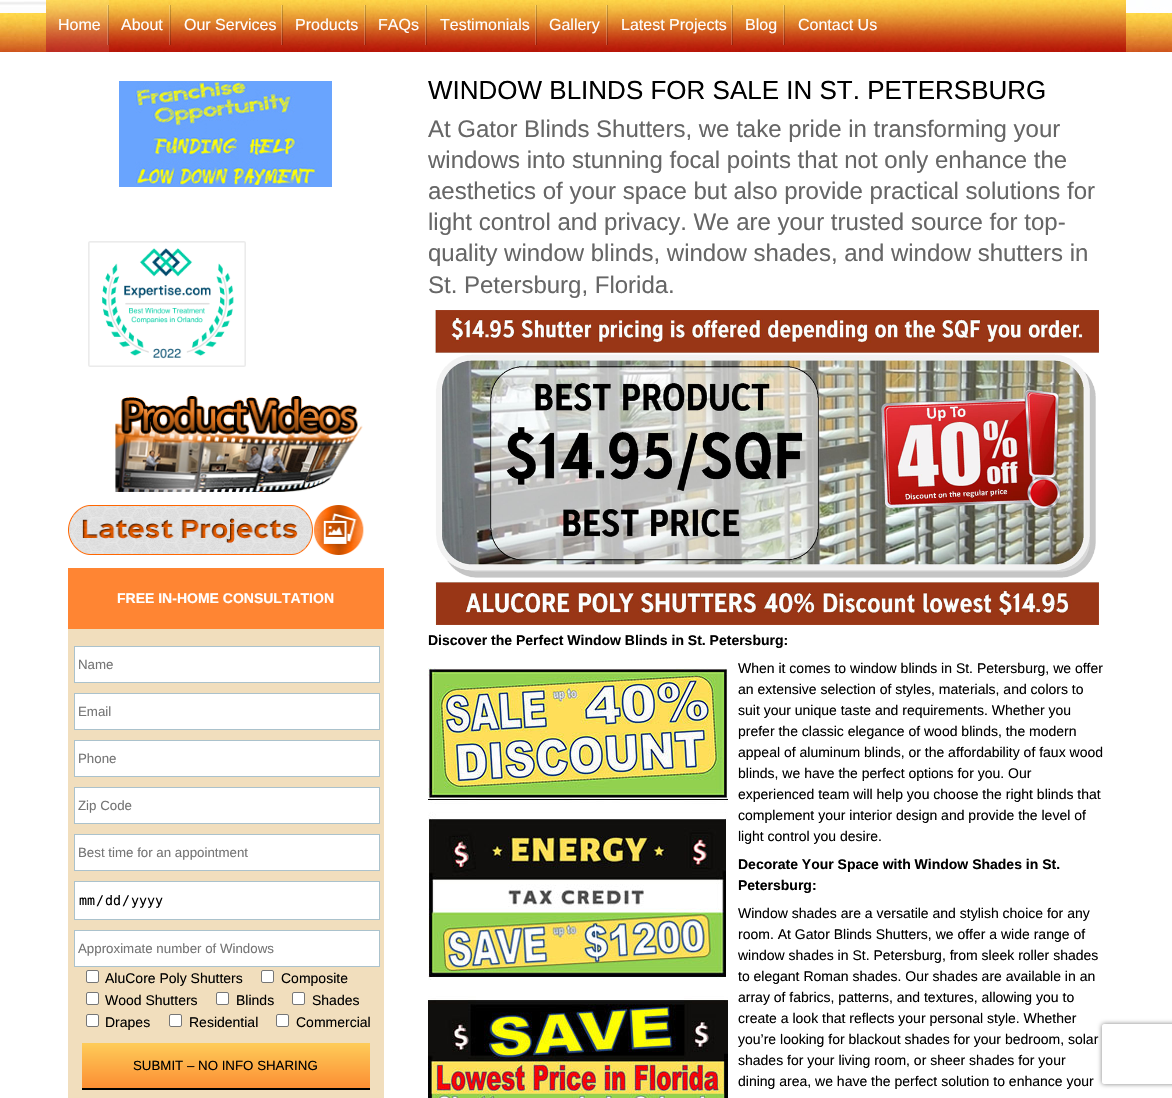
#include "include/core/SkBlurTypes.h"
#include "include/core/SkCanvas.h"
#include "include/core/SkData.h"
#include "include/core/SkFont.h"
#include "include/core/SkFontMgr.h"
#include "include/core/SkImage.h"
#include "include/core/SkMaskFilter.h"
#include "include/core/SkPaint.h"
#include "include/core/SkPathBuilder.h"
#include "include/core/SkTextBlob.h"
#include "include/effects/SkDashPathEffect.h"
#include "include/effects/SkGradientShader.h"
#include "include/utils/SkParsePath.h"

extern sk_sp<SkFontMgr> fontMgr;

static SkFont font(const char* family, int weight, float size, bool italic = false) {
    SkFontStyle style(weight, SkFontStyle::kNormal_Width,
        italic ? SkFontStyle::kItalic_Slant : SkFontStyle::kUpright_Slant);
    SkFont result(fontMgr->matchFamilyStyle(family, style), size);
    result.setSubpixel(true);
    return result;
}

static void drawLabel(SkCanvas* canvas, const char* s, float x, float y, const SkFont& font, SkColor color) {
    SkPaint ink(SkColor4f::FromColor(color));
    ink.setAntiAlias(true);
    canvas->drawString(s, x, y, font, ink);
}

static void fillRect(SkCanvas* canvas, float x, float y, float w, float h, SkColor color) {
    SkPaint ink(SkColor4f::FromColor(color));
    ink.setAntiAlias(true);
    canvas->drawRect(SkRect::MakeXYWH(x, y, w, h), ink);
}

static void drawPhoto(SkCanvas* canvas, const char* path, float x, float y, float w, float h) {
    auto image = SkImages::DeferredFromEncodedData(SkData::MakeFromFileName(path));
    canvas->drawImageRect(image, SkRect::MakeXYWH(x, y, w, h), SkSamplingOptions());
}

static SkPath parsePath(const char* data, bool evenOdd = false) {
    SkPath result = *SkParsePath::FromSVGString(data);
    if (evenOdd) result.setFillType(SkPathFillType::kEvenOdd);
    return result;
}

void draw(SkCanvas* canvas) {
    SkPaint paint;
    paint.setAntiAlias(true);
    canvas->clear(0xFFFFFFFF);
    drawPhoto(canvas, "assets/img1.png", 0, 0, 1172, 52);
    drawPhoto(canvas, "assets/img2.png", 46, 0, 1080, 52);
    fillRect(canvas, 46, 0, 63, 52, 0x1AFFFFFF);
    drawPhoto(canvas, "assets/img3.png", 107, 5, 2, 40);
    SkFont font1 = font("Liberation Sans", 400, 16);
    drawLabel(canvas, "Home", 58, 30, font1, 0xFFFFFFFF);
    drawPhoto(canvas, "assets/img4.png", 169, 5, 2, 40);
    drawLabel(canvas, "About", 121, 30, font1, 0xFFFFFFFF);
    drawPhoto(canvas, "assets/img5.png", 281, 5, 2, 40);
    drawLabel(canvas, "Our Services", 184, 30, font1, 0xFFFFFFFF);
    drawPhoto(canvas, "assets/img6.png", 364, 5, 2, 40);
    drawLabel(canvas, "Products", 295, 30, font1, 0xFFFFFFFF);
    drawPhoto(canvas, "assets/img7.png", 425, 5, 2, 40);
    drawLabel(canvas, "FAQs", 378, 30, font1, 0xFFFFFFFF);
    drawPhoto(canvas, "assets/img8.png", 535, 5, 2, 40);
    drawLabel(canvas, "Testimonials", 440, 30, font1, 0xFFFFFFFF);
    drawPhoto(canvas, "assets/img9.png", 606, 5, 2, 40);
    drawLabel(canvas, "Gallery", 549, 30, font1, 0xFFFFFFFF);
    drawPhoto(canvas, "assets/img10.png", 731, 5, 2, 40);
    drawLabel(canvas, "Latest Projects", 621, 30, font1, 0xFFFFFFFF);
    drawPhoto(canvas, "assets/img11.png", 783, 5, 2, 40);
    drawLabel(canvas, "Blog", 745, 30, font1, 0xFFFFFFFF);
    drawLabel(canvas, "Contact Us", 798, 30, font1, 0xFFFFFFFF);
    drawPhoto(canvas, "assets/img12.png", 119, 81, 213, 106);
    drawPhoto(canvas, "assets/img13.png", 88, 241, 158, 126);
    drawPhoto(canvas, "assets/img14.png", 115, 396, 248, 96);
    drawPhoto(canvas, "assets/img15.png", 68, 505, 296, 50);
    fillRect(canvas, 68, 629, 316, 469, 0xFFF1DEBD);
    fillRect(canvas, 68, 568, 316, 61, 0xFFFF8533);
    SkFont font2 = font("Liberation Sans", 700, 14);
    drawLabel(canvas, "FREE IN-HOME CONSULTATION", 117, 603, font2, 0xFFFFFFFF);
    paint.setColor(0xFFFFFFFF);
    canvas->drawRect(SkRect::MakeXYWH(74.5f, 646.5f, 305, 36), paint);
    paint.setStroke(true);
    paint.setStrokeWidth(1);
    paint.setColor(0xFFABC2CC);
    canvas->drawRect(SkRect::MakeXYWH(74.5f, 646.5f, 305, 36), paint);
    SkFont font3 = font("Liberation Sans", 400, 13.3f);
    drawLabel(canvas, "Name", 78, 669, font3, 0xFF757575);
    paint.setStroke(false);
    paint.setColor(0xFFFFFFFF);
    canvas->drawRect(SkRect::MakeXYWH(74.5f, 693.5f, 305, 36), paint);
    paint.setStroke(true);
    paint.setColor(0xFFABC2CC);
    canvas->drawRect(SkRect::MakeXYWH(74.5f, 693.5f, 305, 36), paint);
    drawLabel(canvas, "Email", 78, 716, font3, 0xFF757575);
    paint.setStroke(false);
    paint.setColor(0xFFFFFFFF);
    canvas->drawRect(SkRect::MakeXYWH(74.5f, 740.5f, 305, 36), paint);
    paint.setStroke(true);
    paint.setColor(0xFFABC2CC);
    canvas->drawRect(SkRect::MakeXYWH(74.5f, 740.5f, 305, 36), paint);
    drawLabel(canvas, "Phone", 78, 763, font3, 0xFF757575);
    paint.setStroke(false);
    paint.setColor(0xFFFFFFFF);
    canvas->drawRect(SkRect::MakeXYWH(74.5f, 787.5f, 305, 36), paint);
    paint.setStroke(true);
    paint.setColor(0xFFABC2CC);
    canvas->drawRect(SkRect::MakeXYWH(74.5f, 787.5f, 305, 36), paint);
    drawLabel(canvas, "Zip Code", 78, 810, font3, 0xFF757575);
    paint.setStroke(false);
    paint.setColor(0xFFFFFFFF);
    canvas->drawRect(SkRect::MakeXYWH(74.5f, 834.5f, 305, 36), paint);
    paint.setStroke(true);
    paint.setColor(0xFFABC2CC);
    canvas->drawRect(SkRect::MakeXYWH(74.5f, 834.5f, 305, 36), paint);
    drawLabel(canvas, "Best time for an appointment", 78, 857, font3, 0xFF757575);
    paint.setStroke(false);
    paint.setColor(0xFFFFFFFF);
    canvas->drawRect(SkRect::MakeXYWH(74.5f, 881.5f, 305, 38), paint);
    paint.setStroke(true);
    paint.setColor(0xFFABC2CC);
    canvas->drawRect(SkRect::MakeXYWH(74.5f, 881.5f, 305, 38), paint);
    SkFont font4 = font("DejaVu Sans Mono", 400, 13.3f);
    drawLabel(canvas, "mm", 79, 905, font4, 0xFF000000);
    drawLabel(canvas, "/", 96, 905, font4, 0xFF000000);
    drawLabel(canvas, "dd", 105, 905, font4, 0xFF000000);
    drawLabel(canvas, "/", 122, 905, font4, 0xFF000000);
    drawLabel(canvas, "yyyy", 131, 905, font4, 0xFF000000);
    paint.setStroke(false);
    paint.setColor(0xFFFFFFFF);
    canvas->drawRect(SkRect::MakeXYWH(74.5f, 930.5f, 305, 36), paint);
    paint.setStroke(true);
    paint.setColor(0xFFABC2CC);
    canvas->drawRect(SkRect::MakeXYWH(74.5f, 930.5f, 305, 36), paint);
    drawLabel(canvas, "Approximate number of Windows", 78, 953, font3, 0xFF757575);
    paint.setStroke(false);
    paint.setColor(0xFFFFFFFF);
    canvas->drawRoundRect(SkRect::MakeXYWH(86.5f, 970.5f, 12, 12), 1.5f, 1.5f, paint);
    paint.setStroke(true);
    paint.setColor(0xFF767676);
    canvas->drawRoundRect(SkRect::MakeXYWH(86.5f, 970.5f, 12, 12), 1.5f, 1.5f, paint);
    SkFont font5 = font("Liberation Sans", 400, 14);
    drawLabel(canvas, "AluCore Poly Shutters", 105, 983, font5, 0xFF000000);
    paint.setStroke(false);
    paint.setColor(0xFFFFFFFF);
    canvas->drawRoundRect(SkRect::MakeXYWH(261.5f, 970.5f, 12, 12), 1.5f, 1.5f, paint);
    paint.setStroke(true);
    paint.setColor(0xFF767676);
    canvas->drawRoundRect(SkRect::MakeXYWH(261.5f, 970.5f, 12, 12), 1.5f, 1.5f, paint);
    drawLabel(canvas, "Composite", 281, 983, font5, 0xFF000000);
    paint.setStroke(false);
    paint.setColor(0xFFFFFFFF);
    canvas->drawRoundRect(SkRect::MakeXYWH(86.5f, 992.5f, 12, 12), 1.5f, 1.5f, paint);
    paint.setStroke(true);
    paint.setColor(0xFF767676);
    canvas->drawRoundRect(SkRect::MakeXYWH(86.5f, 992.5f, 12, 12), 1.5f, 1.5f, paint);
    drawLabel(canvas, "Wood Shutters", 105, 1005, font5, 0xFF000000);
    paint.setStroke(false);
    paint.setColor(0xFFFFFFFF);
    canvas->drawRoundRect(SkRect::MakeXYWH(216.5f, 992.5f, 12, 12), 1.5f, 1.5f, paint);
    paint.setStroke(true);
    paint.setColor(0xFF767676);
    canvas->drawRoundRect(SkRect::MakeXYWH(216.5f, 992.5f, 12, 12), 1.5f, 1.5f, paint);
    drawLabel(canvas, "Blinds", 236, 1005, font5, 0xFF000000);
    paint.setStroke(false);
    paint.setColor(0xFFFFFFFF);
    canvas->drawRoundRect(SkRect::MakeXYWH(292.5f, 992.5f, 12, 12), 1.5f, 1.5f, paint);
    paint.setStroke(true);
    paint.setColor(0xFF767676);
    canvas->drawRoundRect(SkRect::MakeXYWH(292.5f, 992.5f, 12, 12), 1.5f, 1.5f, paint);
    drawLabel(canvas, "Shades", 312, 1005, font5, 0xFF000000);
    paint.setStroke(false);
    paint.setColor(0xFFFFFFFF);
    canvas->drawRoundRect(SkRect::MakeXYWH(86.5f, 1014.5f, 12, 12), 1.5f, 1.5f, paint);
    paint.setStroke(true);
    paint.setColor(0xFF767676);
    canvas->drawRoundRect(SkRect::MakeXYWH(86.5f, 1014.5f, 12, 12), 1.5f, 1.5f, paint);
    drawLabel(canvas, "Drapes", 105, 1027, font5, 0xFF000000);
    paint.setStroke(false);
    paint.setColor(0xFFFFFFFF);
    canvas->drawRoundRect(SkRect::MakeXYWH(169.5f, 1014.5f, 12, 12), 1.5f, 1.5f, paint);
    paint.setStroke(true);
    paint.setColor(0xFF767676);
    canvas->drawRoundRect(SkRect::MakeXYWH(169.5f, 1014.5f, 12, 12), 1.5f, 1.5f, paint);
    drawLabel(canvas, "Residential", 189, 1027, font5, 0xFF000000);
    paint.setStroke(false);
    paint.setColor(0xFFFFFFFF);
    canvas->drawRoundRect(SkRect::MakeXYWH(276.5f, 1014.5f, 12, 12), 1.5f, 1.5f, paint);
    paint.setStroke(true);
    paint.setColor(0xFF767676);
    canvas->drawRoundRect(SkRect::MakeXYWH(276.5f, 1014.5f, 12, 12), 1.5f, 1.5f, paint);
    drawLabel(canvas, "Commercial", 296, 1027, font5, 0xFF000000);
    paint.setStroke(false);
    {
        const SkColor colors[] = {0xFFFECC59, 0xFFFC8F34};
        const float stops[] = {0, 0.98f};
        const SkPoint ends[] = {{226, 1043}, {226, 1088}};
        paint.setShader(SkGradientShader::MakeLinear(ends, colors, stops, 2, SkTileMode::kClamp));
        paint.setAlpha(255);
    }
    canvas->drawRect(SkRect::MakeXYWH(82, 1043, 288, 45), paint);
    fillRect(canvas, 82, 1088, 288, 2, 0xFF000000);
    drawLabel(canvas, "SUBMIT – NO INFO SHARING", 133, 1070, font3, 0xFF000000);
    SkFont font6 = font("Liberation Sans", 400, 26);
    drawLabel(canvas, "WINDOW BLINDS FOR SALE IN ST. PETERSBURG", 428, 99, font6, 0xFF000000);
    SkFont font7 = font("Liberation Sans", 400, 24);
    drawLabel(canvas, "At Gator Blinds Shutters, we take pride in transforming your", 428, 137, font7, 0xFF666666);
    drawLabel(canvas, "windows into stunning focal points that not only enhance the", 428, 168, font7, 0xFF666666);
    drawLabel(canvas, "aesthetics of your space but also provide practical solutions for", 428, 199, font7, 0xFF666666);
    drawLabel(canvas, "light control and privacy. We are your trusted source for top-", 428, 230, font7, 0xFF666666);
    drawLabel(canvas, "quality window blinds, window shades, and window shutters in", 428, 261, font7, 0xFF666666);
    drawLabel(canvas, "St. Petersburg, Florida.", 428, 293, font7, 0xFF666666);
    drawPhoto(canvas, "assets/img16.png", 435, 310, 664, 315);
    drawLabel(canvas, "Discover the Perfect Window Blinds in St. Petersburg:", 428, 645, font2, 0xFF000000);
    drawPhoto(canvas, "assets/img17.png", 428, 668, 300, 430);
    drawLabel(canvas, "When it comes to window blinds in St. Petersburg, we offer", 738, 673, font5, 0xFF000000);
    drawLabel(canvas, "an extensive selection of styles, materials, and colors to", 738, 694, font5, 0xFF000000);
    drawLabel(canvas, "suit your unique taste and requirements. Whether you", 738, 715, font5, 0xFF000000);
    drawLabel(canvas, "prefer the classic elegance of wood blinds, the modern", 738, 736, font5, 0xFF000000);
    drawLabel(canvas, "appeal of aluminum blinds, or the affordability of faux wood", 738, 757, font5, 0xFF000000);
    drawLabel(canvas, "blinds, we have the perfect options for you. Our", 738, 778, font5, 0xFF000000);
    drawLabel(canvas, "experienced team will help you choose the right blinds that", 738, 799, font5, 0xFF000000);
    drawLabel(canvas, "complement your interior design and provide the level of", 738, 820, font5, 0xFF000000);
    drawLabel(canvas, "light control you desire.", 738, 841, font5, 0xFF000000);
    drawLabel(canvas, "Decorate Your Space with Window Shades in St.", 738, 869, font2, 0xFF000000);
    drawLabel(canvas, "Petersburg:", 738, 890, font2, 0xFF000000);
    drawLabel(canvas, "Window shades are a versatile and stylish choice for any", 738, 918, font5, 0xFF000000);
    drawLabel(canvas, "room. At Gator Blinds Shutters, we offer a wide range of", 738, 939, font5, 0xFF000000);
    drawLabel(canvas, "window shades in St. Petersburg, from sleek roller shades", 738, 960, font5, 0xFF000000);
    drawLabel(canvas, "to elegant Roman shades. Our shades are available in an", 738, 981, font5, 0xFF000000);
    drawLabel(canvas, "array of fabrics, patterns, and textures, allowing you to", 738, 1002, font5, 0xFF000000);
    drawLabel(canvas, "create a look that reflects your personal style. Whether", 738, 1023, font5, 0xFF000000);
    drawLabel(canvas, "you’re looking for blackout shades for your bedroom, solar", 738, 1044, font5, 0xFF000000);
    drawLabel(canvas, "shades for your living room, or sheer shades for your", 738, 1065, font5, 0xFF000000);
    drawLabel(canvas, "dining area, we have the perfect solution to enhance your", 738, 1086, font5, 0xFF000000);
    canvas->save();
    canvas->clipPath(parsePath("M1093 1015H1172V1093H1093ZM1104 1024H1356C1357 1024 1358 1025 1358 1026V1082C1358 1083 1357 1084 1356 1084H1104C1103 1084 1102 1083 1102 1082V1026C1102 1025 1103 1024 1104 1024Z", true), true);
    paint.setShader(nullptr);
    paint.setColor(0xFF808080);
    paint.setMaskFilter(SkMaskFilter::MakeBlur(kNormal_SkBlurStyle, 2.5f));
    canvas->drawRoundRect(SkRect::MakeXYWH(1102, 1024, 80, 60), 2, 2, paint);
    paint.setMaskFilter(nullptr);
    canvas->restore();
}
